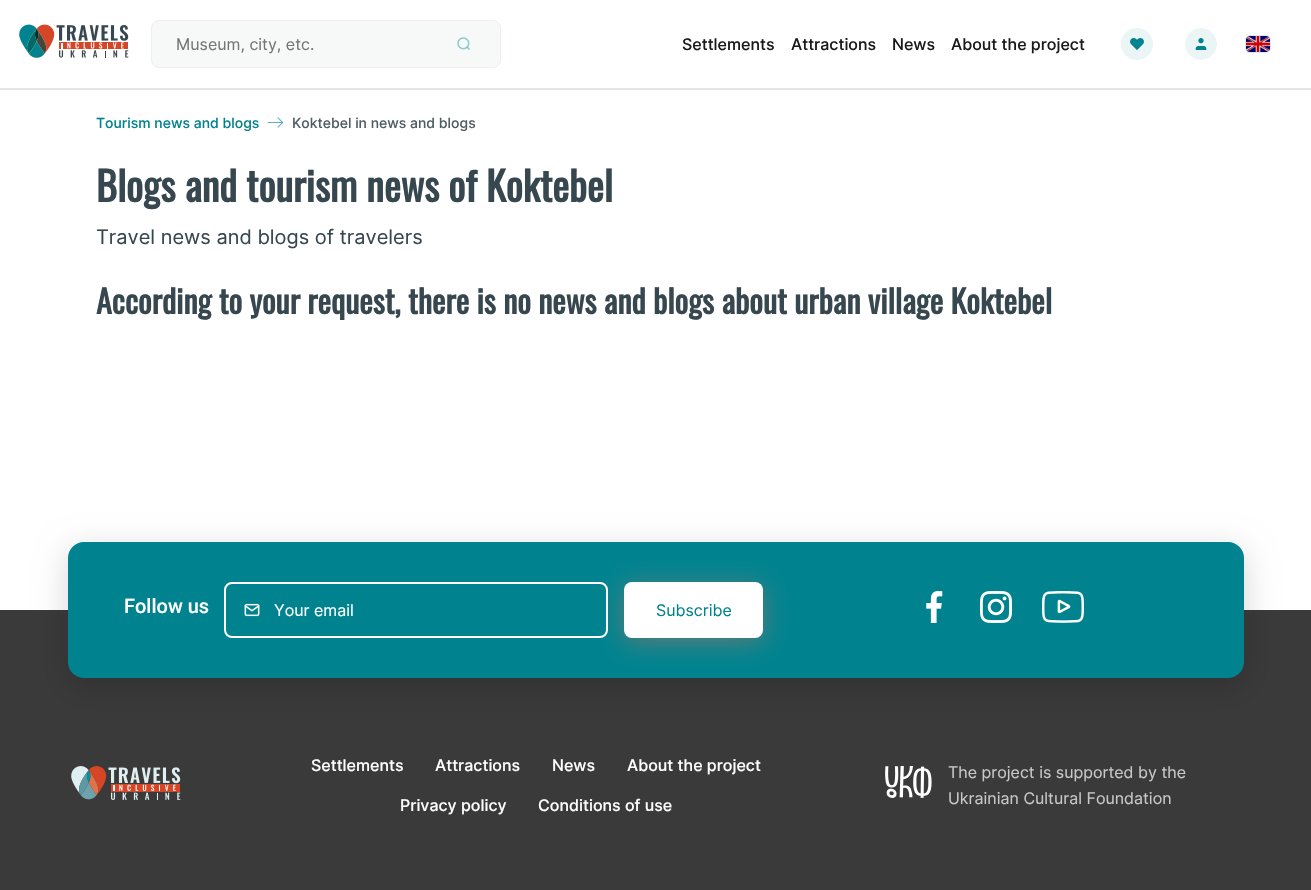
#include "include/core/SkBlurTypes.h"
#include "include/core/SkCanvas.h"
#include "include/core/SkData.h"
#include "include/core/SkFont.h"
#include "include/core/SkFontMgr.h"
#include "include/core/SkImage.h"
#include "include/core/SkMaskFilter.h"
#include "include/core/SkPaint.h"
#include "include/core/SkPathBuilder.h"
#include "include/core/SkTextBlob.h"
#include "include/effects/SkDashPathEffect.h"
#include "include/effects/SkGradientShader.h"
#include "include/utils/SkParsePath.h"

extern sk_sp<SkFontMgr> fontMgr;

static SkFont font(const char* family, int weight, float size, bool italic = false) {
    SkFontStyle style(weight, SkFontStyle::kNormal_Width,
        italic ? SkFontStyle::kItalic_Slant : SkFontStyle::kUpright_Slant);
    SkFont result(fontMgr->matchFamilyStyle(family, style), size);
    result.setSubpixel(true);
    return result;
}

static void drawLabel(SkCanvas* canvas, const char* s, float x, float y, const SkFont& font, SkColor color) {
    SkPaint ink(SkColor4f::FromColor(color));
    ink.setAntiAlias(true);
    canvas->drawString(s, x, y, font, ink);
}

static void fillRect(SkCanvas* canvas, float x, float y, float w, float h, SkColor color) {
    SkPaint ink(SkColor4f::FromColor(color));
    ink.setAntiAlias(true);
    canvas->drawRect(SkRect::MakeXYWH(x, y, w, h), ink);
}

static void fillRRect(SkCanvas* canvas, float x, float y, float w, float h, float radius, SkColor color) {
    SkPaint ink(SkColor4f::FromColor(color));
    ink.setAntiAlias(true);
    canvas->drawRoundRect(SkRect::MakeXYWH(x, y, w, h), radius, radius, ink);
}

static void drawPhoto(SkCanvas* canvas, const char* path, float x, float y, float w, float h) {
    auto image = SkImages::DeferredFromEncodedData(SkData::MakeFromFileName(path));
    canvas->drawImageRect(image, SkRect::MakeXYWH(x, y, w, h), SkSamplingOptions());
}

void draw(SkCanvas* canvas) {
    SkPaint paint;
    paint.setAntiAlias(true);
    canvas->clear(0xFFFFFFFF);
    fillRect(canvas, 0, 88, 1311, 2, 0xFFE5E5E5);
    drawPhoto(canvas, "assets/img1.png", 19, 24, 110, 34);
    paint.setColor(0xFFF7F8F8);
    canvas->drawRoundRect(SkRect::MakeXYWH(151.5f, 20.5f, 349, 47), 7.5f, 7.5f, paint);
    paint.setStroke(true);
    paint.setStrokeWidth(1);
    paint.setColor(0xFFEFEFEF);
    canvas->drawRoundRect(SkRect::MakeXYWH(151.5f, 20.5f, 349, 47), 7.5f, 7.5f, paint);
    SkFont font1 = font("Inter", 400, 16);
    drawLabel(canvas, "Museum, city, etc.", 176, 50, font1, 0xFF757575);
    drawPhoto(canvas, "assets/img2.png", 457, 37, 13, 13);
    SkFont font2 = font("Inter", 500, 16);
    drawLabel(canvas, "Settlements", 682, 50, font2, 0xFF1A1A1A);
    drawLabel(canvas, "Attractions", 791, 50, font2, 0xFF1A1A1A);
    drawLabel(canvas, "News", 892, 50, font2, 0xFF1A1A1A);
    drawLabel(canvas, "About the project", 951, 50, font2, 0xFF1A1A1A);
    drawPhoto(canvas, "assets/img3.png", 1121, 28, 32, 32);
    drawPhoto(canvas, "assets/img4.png", 1185, 28, 32, 32);
    drawPhoto(canvas, "assets/img5.png", 1245, 35, 26, 18);
    SkFont font3 = font("Inter", 500, 14);
    drawLabel(canvas, "Tourism news and blogs", 96, 128, font3, 0xFF00838F);
    drawPhoto(canvas, "assets/img6.png", 267, 117, 17, 11);
    drawLabel(canvas, "Koktebel in news and blogs", 292, 128, font3, 0xFF4F5D64);
    SkFont font4 = font("Oswald", 700, 40);
    drawLabel(canvas, "Blogs and tourism news of Koktebel", 96, 202, font4, 0xFF37474F);
    SkFont font5 = font("Inter", 400, 20);
    drawLabel(canvas, "Travel news and blogs of travelers", 96, 244, font5, 0xFF37474F);
    SkFont font6 = font("Oswald", 700, 32);
    drawLabel(canvas, "According to your request, there is no news and blogs about urban village Koktebel", 96, 314, font6, 0xFF37474F);
    fillRect(canvas, 0, 610, 1311, 280, 0xFF3A3A3A);
    paint.setStroke(false);
    paint.setColor(0x29000000);
    paint.setMaskFilter(SkMaskFilter::MakeBlur(kNormal_SkBlurStyle, 16));
    canvas->drawRoundRect(SkRect::MakeXYWH(68, 550, 1176, 136), 16, 16, paint);
    paint.setMaskFilter(nullptr);
    fillRRect(canvas, 68, 542, 1176, 136, 16, 0xFF00838F);
    SkFont font7 = font("Roboto", 500, 20);
    drawLabel(canvas, "Follow us", 124, 613, font7, 0xFFFFFFFF);
    paint.setColor(0x66F66D5A);
    paint.setMaskFilter(SkMaskFilter::MakeBlur(kNormal_SkBlurStyle, 12));
    canvas->drawRoundRect(SkRect::MakeXYWH(624, 586, 139, 56), 8, 8, paint);
    paint.setMaskFilter(nullptr);
    paint.setColor(0xFF00838F);
    canvas->drawRoundRect(SkRect::MakeXYWH(225, 583, 382, 54), 7, 7, paint);
    paint.setStroke(true);
    paint.setStrokeWidth(2);
    paint.setColor(0xFFFFFFFF);
    canvas->drawRoundRect(SkRect::MakeXYWH(225, 583, 382, 54), 7, 7, paint);
    drawPhoto(canvas, "assets/img7.png", 244, 603, 16, 14);
    drawLabel(canvas, "Your email", 274, 616, font1, 0xFFFFFFFF);
    fillRRect(canvas, 624, 582, 139, 56, 8, 0xFFFFFFFF);
    drawLabel(canvas, "Subscribe", 656, 616, font1, 0xFF00838F);
    drawPhoto(canvas, "assets/img8.png", 926, 591, 17, 32);
    drawPhoto(canvas, "assets/img9.png", 980, 591, 32, 32);
    drawPhoto(canvas, "assets/img10.png", 1042, 591, 42, 32);
    drawPhoto(canvas, "assets/img11.png", 71, 766, 110, 34);
    drawLabel(canvas, "Settlements", 311, 771, font2, 0xFFFFFFFF);
    drawLabel(canvas, "Attractions", 435, 771, font2, 0xFFFFFFFF);
    drawLabel(canvas, "News", 552, 771, font2, 0xFFFFFFFF);
    drawLabel(canvas, "About the project", 627, 771, font2, 0xFFFFFFFF);
    drawLabel(canvas, "Privacy policy", 400, 811, font2, 0xFFFFFFFF);
    drawLabel(canvas, "Conditions of use", 538, 811, font2, 0xFFFFFFFF);
    drawPhoto(canvas, "assets/img12.png", 885, 766, 47, 32);
    drawLabel(canvas, "The project is supported by the", 948, 778, font1, 0xFFC8C8C8);
    drawLabel(canvas, "Ukrainian Cultural Foundation", 948, 804, font1, 0xFFC8C8C8);
}
